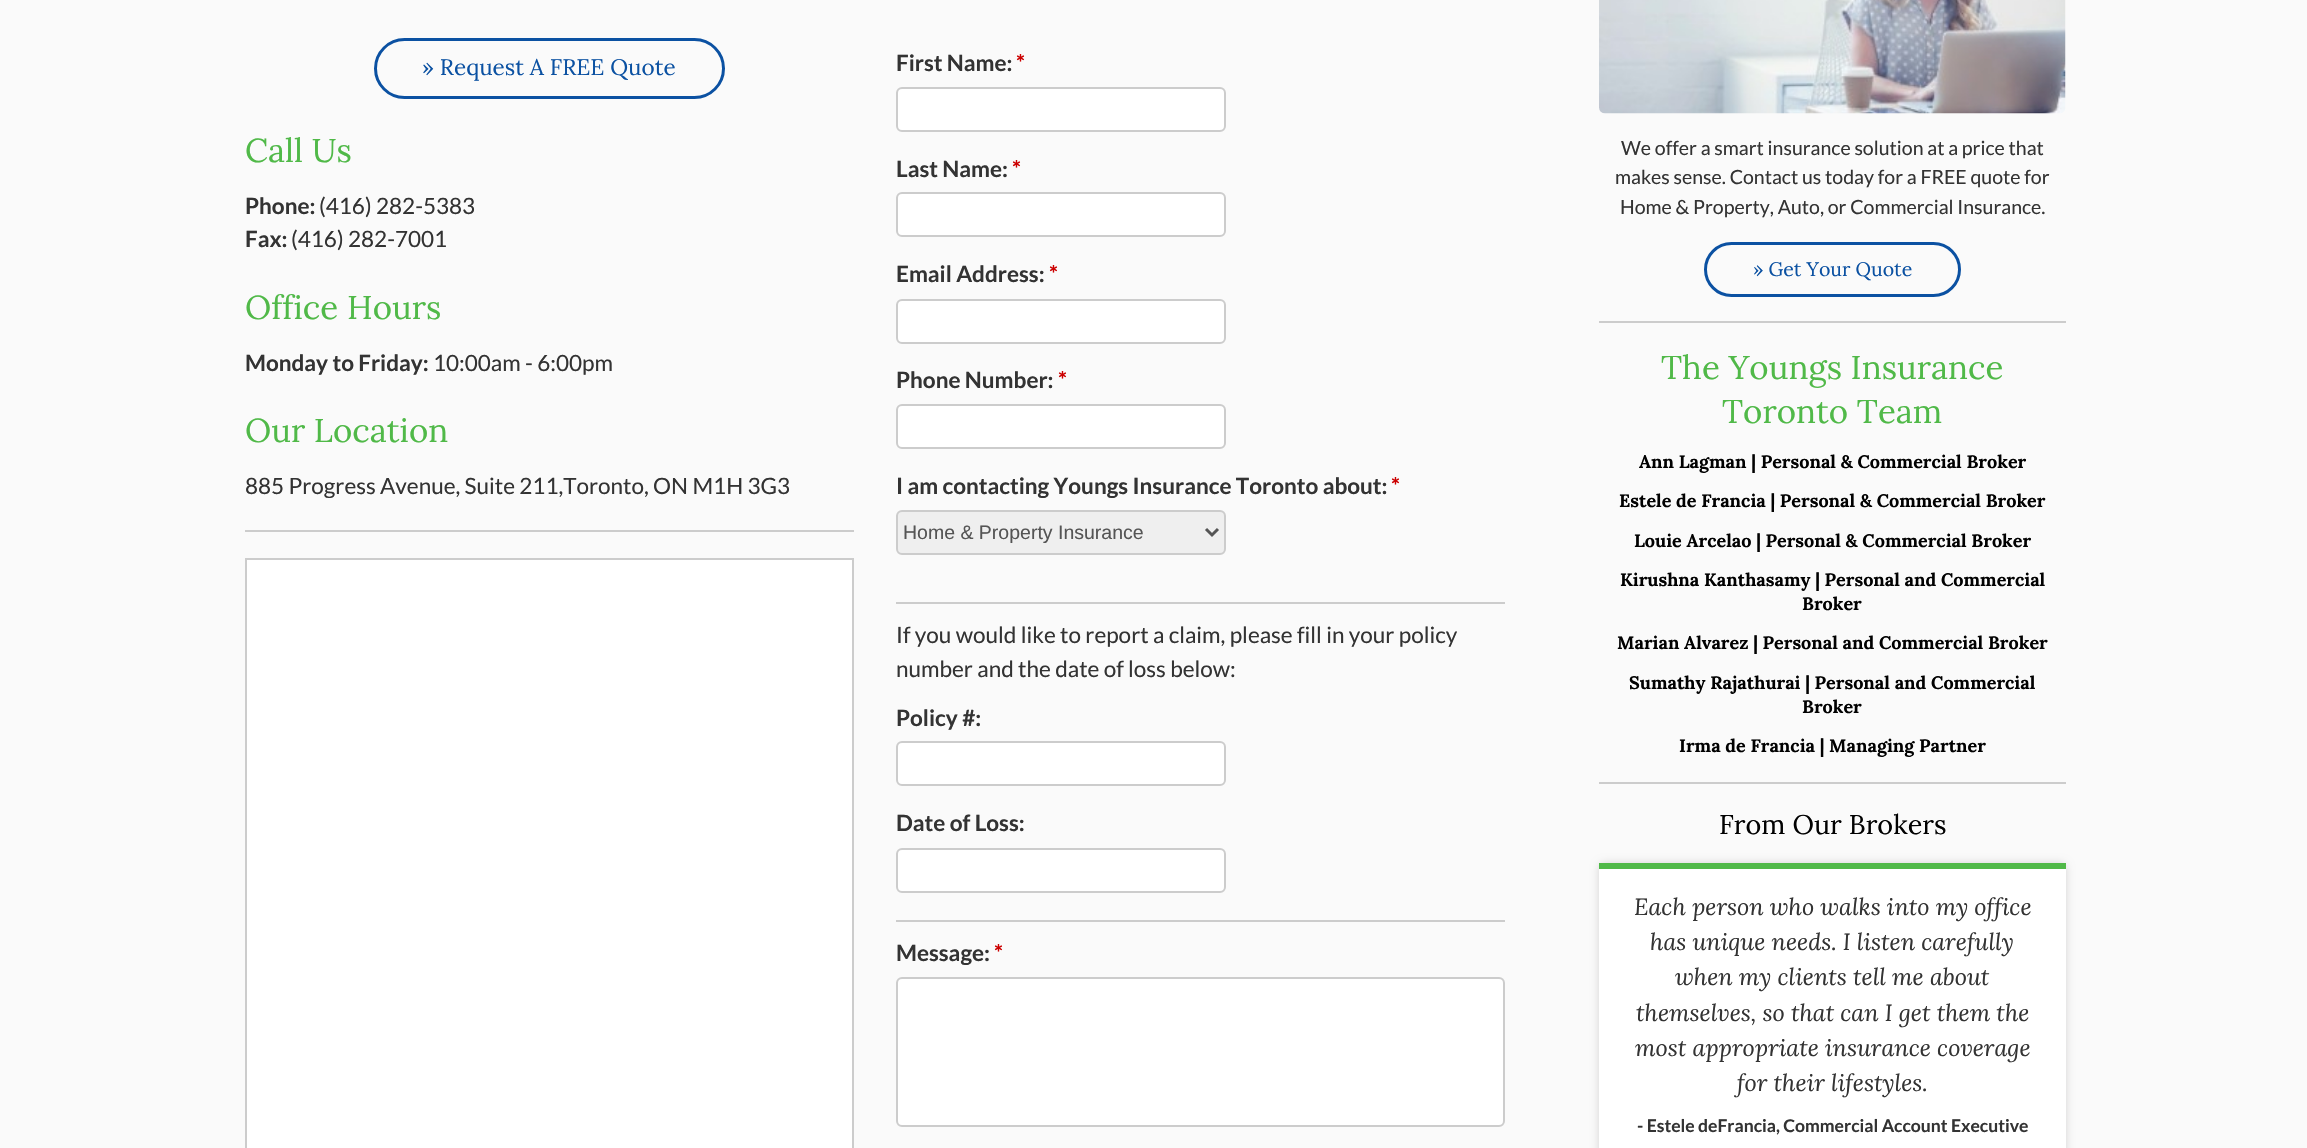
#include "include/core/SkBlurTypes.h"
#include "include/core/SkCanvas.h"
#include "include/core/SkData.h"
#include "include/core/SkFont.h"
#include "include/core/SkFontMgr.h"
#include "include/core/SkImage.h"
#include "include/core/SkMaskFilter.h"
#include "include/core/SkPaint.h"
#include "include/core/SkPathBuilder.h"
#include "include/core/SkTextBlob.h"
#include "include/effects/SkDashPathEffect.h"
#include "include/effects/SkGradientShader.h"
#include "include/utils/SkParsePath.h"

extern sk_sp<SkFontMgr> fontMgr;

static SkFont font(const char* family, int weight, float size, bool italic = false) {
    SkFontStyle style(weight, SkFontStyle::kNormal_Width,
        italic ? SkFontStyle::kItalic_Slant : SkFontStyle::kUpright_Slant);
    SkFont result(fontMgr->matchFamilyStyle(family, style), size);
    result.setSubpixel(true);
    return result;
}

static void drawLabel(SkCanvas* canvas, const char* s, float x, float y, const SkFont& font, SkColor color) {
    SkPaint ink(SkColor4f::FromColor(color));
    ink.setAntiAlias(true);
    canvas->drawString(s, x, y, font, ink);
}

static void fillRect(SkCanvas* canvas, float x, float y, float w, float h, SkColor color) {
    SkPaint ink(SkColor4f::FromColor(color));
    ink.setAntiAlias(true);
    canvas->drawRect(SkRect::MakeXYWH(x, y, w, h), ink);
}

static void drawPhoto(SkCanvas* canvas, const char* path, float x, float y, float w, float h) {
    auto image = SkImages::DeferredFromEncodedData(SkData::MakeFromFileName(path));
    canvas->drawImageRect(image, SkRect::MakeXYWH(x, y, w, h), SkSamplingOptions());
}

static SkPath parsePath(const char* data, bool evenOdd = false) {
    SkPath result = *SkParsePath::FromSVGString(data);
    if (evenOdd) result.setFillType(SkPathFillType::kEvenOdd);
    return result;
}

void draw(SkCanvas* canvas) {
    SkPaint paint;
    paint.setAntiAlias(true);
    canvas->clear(0xFFFAFAFA);
    paint.setStroke(true);
    paint.setStrokeWidth(3);
    paint.setColor(0xFF0B51A2);
    canvas->drawRoundRect(SkRect::MakeXYWH(375.5f, 39.5f, 348, 58), 29, 29, paint);
    SkFont font1 = font("Lora", 400, 22.5f);
    drawLabel(canvas, "» Request A FREE Quote", 422, 75, font1, 0xFF0B51A2);
    SkFont font2 = font("Lora", 400, 33);
    drawLabel(canvas, "Call Us", 245, 162, font2, 0xFF50B948);
    SkFont font3 = font("Lato", 700, 22.5f);
    drawLabel(canvas, "Phone:", 245, 214, font3, 0xFF333333);
    SkFont font4 = font("Lato", 400, 22.5f);
    drawLabel(canvas, "(416) 282-5383", 319, 214, font4, 0xFF333333);
    drawLabel(canvas, "Fax:", 245, 247, font3, 0xFF333333);
    drawLabel(canvas, "(416) 282-7001", 291, 247, font4, 0xFF333333);
    drawLabel(canvas, "Office Hours", 245, 319, font2, 0xFF50B948);
    drawLabel(canvas, "Monday to Friday:", 245, 371, font3, 0xFF333333);
    drawLabel(canvas, "10:00am - 6:00pm", 433, 371, font4, 0xFF333333);
    drawLabel(canvas, "Our Location", 245, 442, font2, 0xFF50B948);
    drawLabel(canvas, "885 Progress Avenue, Suite 211,Toronto, ON M1H 3G3", 245, 494, font4, 0xFF333333);
    fillRect(canvas, 245, 530, 609, 2, 0xFFCCCCCC);
    paint.setStroke(false);
    paint.setColor(0xFFFFFFFF);
    canvas->drawRect(SkRect::MakeXYWH(246, 559, 607, 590), paint);
    paint.setStroke(true);
    paint.setStrokeWidth(2);
    paint.setColor(0xFFCCCCCC);
    canvas->drawRect(SkRect::MakeXYWH(246, 559, 607, 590), paint);
    drawLabel(canvas, "First Name:", 896, 71, font3, 0xFF333333);
    drawLabel(canvas, "*", 1016, 71, font3, 0xFFCC0000);
    paint.setStroke(false);
    paint.setColor(0xFFFFFFFF);
    canvas->drawRoundRect(SkRect::MakeXYWH(897, 88, 328, 43), 5, 5, paint);
    paint.setStroke(true);
    paint.setColor(0xFFCCCCCC);
    canvas->drawRoundRect(SkRect::MakeXYWH(897, 88, 328, 43), 5, 5, paint);
    drawLabel(canvas, "Last Name:", 896, 177, font3, 0xFF333333);
    drawLabel(canvas, "*", 1012, 177, font3, 0xFFCC0000);
    paint.setStroke(false);
    paint.setColor(0xFFFFFFFF);
    canvas->drawRoundRect(SkRect::MakeXYWH(897, 193, 328, 43), 5, 5, paint);
    paint.setStroke(true);
    paint.setColor(0xFFCCCCCC);
    canvas->drawRoundRect(SkRect::MakeXYWH(897, 193, 328, 43), 5, 5, paint);
    drawLabel(canvas, "Email Address:", 896, 282, font3, 0xFF333333);
    drawLabel(canvas, "*", 1049, 282, font3, 0xFFCC0000);
    paint.setStroke(false);
    paint.setColor(0xFFFFFFFF);
    canvas->drawRoundRect(SkRect::MakeXYWH(897, 300, 328, 43), 5, 5, paint);
    paint.setStroke(true);
    paint.setColor(0xFFCCCCCC);
    canvas->drawRoundRect(SkRect::MakeXYWH(897, 300, 328, 43), 5, 5, paint);
    drawLabel(canvas, "Phone Number:", 896, 388, font3, 0xFF333333);
    drawLabel(canvas, "*", 1058, 388, font3, 0xFFCC0000);
    paint.setStroke(false);
    paint.setColor(0xFFFFFFFF);
    canvas->drawRoundRect(SkRect::MakeXYWH(897, 405, 328, 43), 5, 5, paint);
    paint.setStroke(true);
    paint.setColor(0xFFCCCCCC);
    canvas->drawRoundRect(SkRect::MakeXYWH(897, 405, 328, 43), 5, 5, paint);
    drawLabel(canvas, "I am contacting Youngs Insurance Toronto about:", 896, 494, font3, 0xFF333333);
    drawLabel(canvas, "*", 1391, 494, font3, 0xFFCC0000);
    paint.setStroke(false);
    paint.setColor(0xFFEFEFEF);
    canvas->drawRoundRect(SkRect::MakeXYWH(897, 511, 328, 43), 5, 5, paint);
    paint.setStroke(true);
    paint.setColor(0xFFCCCCCC);
    canvas->drawRoundRect(SkRect::MakeXYWH(897, 511, 328, 43), 5, 5, paint);
    paint.setStrokeWidth(3);
    paint.setColor(0xFF555555);
    canvas->drawPath(parsePath("M1206 529L1212 535L1218 529"), paint);
    SkFont font5 = font("Liberation Sans", 400, 19.5f);
    drawLabel(canvas, "Home & Property Insurance", 903, 539, font5, 0xFF555555);
    fillRect(canvas, 896, 602, 609, 2, 0xFFCCCCCC);
    drawLabel(canvas, "If you would like to report a claim, please fill in your policy", 896, 643, font4, 0xFF333333);
    drawLabel(canvas, "number and the date of loss below:", 896, 677, font4, 0xFF333333);
    drawLabel(canvas, "Policy #:", 896, 726, font3, 0xFF333333);
    paint.setStroke(false);
    paint.setColor(0xFFFFFFFF);
    canvas->drawRoundRect(SkRect::MakeXYWH(897, 742, 328, 43), 5, 5, paint);
    paint.setStroke(true);
    paint.setStrokeWidth(2);
    paint.setColor(0xFFCCCCCC);
    canvas->drawRoundRect(SkRect::MakeXYWH(897, 742, 328, 43), 5, 5, paint);
    drawLabel(canvas, "Date of Loss:", 896, 831, font3, 0xFF333333);
    paint.setStroke(false);
    paint.setColor(0xFFFFFFFF);
    canvas->drawRoundRect(SkRect::MakeXYWH(897, 849, 328, 43), 5, 5, paint);
    paint.setStroke(true);
    paint.setColor(0xFFCCCCCC);
    canvas->drawRoundRect(SkRect::MakeXYWH(897, 849, 328, 43), 5, 5, paint);
    fillRect(canvas, 896, 920, 609, 2, 0xFFCCCCCC);
    drawLabel(canvas, "Message:", 896, 961, font3, 0xFF333333);
    drawLabel(canvas, "*", 994, 961, font3, 0xFFCC0000);
    paint.setStroke(false);
    paint.setColor(0xFFFFFFFF);
    canvas->drawRoundRect(SkRect::MakeXYWH(897, 978, 607, 148), 5, 5, paint);
    paint.setStroke(true);
    paint.setColor(0xFFCCCCCC);
    canvas->drawRoundRect(SkRect::MakeXYWH(897, 978, 607, 148), 5, 5, paint);
    drawPhoto(canvas, "assets/img1.png", 1599, 0, 467, 114);
    SkFont font6 = font("Lato", 400, 19.5f);
    drawLabel(canvas, "We offer a smart insurance solution at a price that", 1621, 155, font6, 0xFF333333);
    drawLabel(canvas, "makes sense. Contact us today for a FREE quote for", 1615, 184, font6, 0xFF333333);
    drawLabel(canvas, "Home & Property, Auto, or Commercial Insurance.", 1620, 214, font6, 0xFF333333);
    paint.setStrokeWidth(3);
    paint.setColor(0xFF0B51A2);
    canvas->drawRoundRect(SkRect::MakeXYWH(1705.5f, 243.5f, 254, 52), 26, 26, paint);
    SkFont font7 = font("Lora", 400, 19.5f);
    drawLabel(canvas, "» Get Your Quote", 1753, 276, font7, 0xFF0B51A2);
    fillRect(canvas, 1599, 321, 467, 2, 0xFFCCCCCC);
    drawLabel(canvas, "The Youngs Insurance", 1661, 379, font2, 0xFF50B948);
    drawLabel(canvas, "Toronto Team", 1722, 423, font2, 0xFF50B948);
    SkFont font8 = font("Lora", 700, 18);
    drawLabel(canvas, "Ann Lagman | Personal & Commercial Broker", 1639, 468, font8, 0xFF010101);
    drawLabel(canvas, "Estele de Francia | Personal & Commercial Broker", 1619, 507, font8, 0xFF010101);
    drawLabel(canvas, "Louie Arcelao | Personal & Commercial Broker", 1634, 547, font8, 0xFF010101);
    drawLabel(canvas, "Kirushna Kanthasamy | Personal and Commercial", 1620, 586, font8, 0xFF010101);
    drawLabel(canvas, "Broker", 1802, 610, font8, 0xFF010101);
    drawLabel(canvas, "Marian Alvarez | Personal and Commercial Broker", 1617, 649, font8, 0xFF010101);
    drawLabel(canvas, "Sumathy Rajathurai | Personal and Commercial", 1629, 689, font8, 0xFF010101);
    drawLabel(canvas, "Broker", 1802, 713, font8, 0xFF010101);
    drawLabel(canvas, "Irma de Francia | Managing Partner", 1679, 752, font8, 0xFF010101);
    fillRect(canvas, 1599, 782, 467, 2, 0xFFCCCCCC);
    SkFont font9 = font("Lora", 400, 27);
    drawLabel(canvas, "From Our Brokers", 1719, 834, font9, 0xFF010101);
    paint.setStroke(false);
    paint.setColor(0xFFD4D3D3);
    paint.setMaskFilter(SkMaskFilter::MakeBlur(kNormal_SkBlurStyle, 4));
    canvas->drawRoundRect(SkRect::MakeXYWH(1599, 863, 467, 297), 6, 6, paint);
    paint.setMaskFilter(nullptr);
    fillRect(canvas, 1599, 869, 467, 279, 0xFFFFFFFF);
    fillRect(canvas, 1599, 863, 467, 6, 0xFF50B948);
    SkFont font10 = font("Lora", 400, 23.4f, true);
    drawLabel(canvas, "Each person who walks into my office", 1634, 915, font10, 0xFF333333);
    drawLabel(canvas, "has unique needs. I listen carefully", 1650, 950, font10, 0xFF333333);
    drawLabel(canvas, "when my clients tell me about", 1675, 985, font10, 0xFF333333);
    drawLabel(canvas, "themselves, so that can I get them the", 1636, 1021, font10, 0xFF333333);
    drawLabel(canvas, "most appropriate insurance coverage", 1635, 1056, font10, 0xFF333333);
    drawLabel(canvas, "for their lifestyles.", 1737, 1091, font10, 0xFF333333);
    SkFont font11 = font("Lato", 700, 17.55f);
    drawLabel(canvas, "- Estele deFrancia, Commercial Account Executive", 1637, 1132, font11, 0xFF333333);
}
